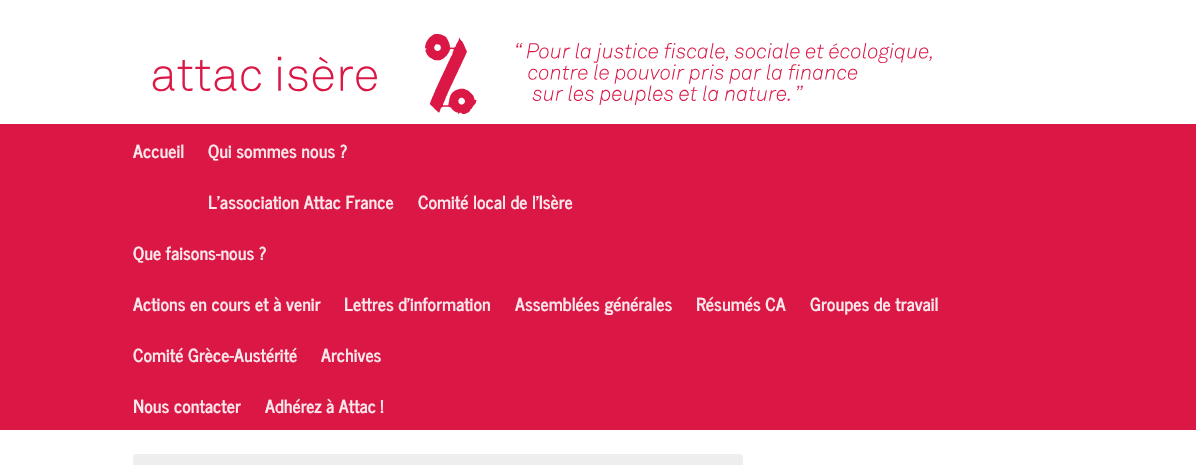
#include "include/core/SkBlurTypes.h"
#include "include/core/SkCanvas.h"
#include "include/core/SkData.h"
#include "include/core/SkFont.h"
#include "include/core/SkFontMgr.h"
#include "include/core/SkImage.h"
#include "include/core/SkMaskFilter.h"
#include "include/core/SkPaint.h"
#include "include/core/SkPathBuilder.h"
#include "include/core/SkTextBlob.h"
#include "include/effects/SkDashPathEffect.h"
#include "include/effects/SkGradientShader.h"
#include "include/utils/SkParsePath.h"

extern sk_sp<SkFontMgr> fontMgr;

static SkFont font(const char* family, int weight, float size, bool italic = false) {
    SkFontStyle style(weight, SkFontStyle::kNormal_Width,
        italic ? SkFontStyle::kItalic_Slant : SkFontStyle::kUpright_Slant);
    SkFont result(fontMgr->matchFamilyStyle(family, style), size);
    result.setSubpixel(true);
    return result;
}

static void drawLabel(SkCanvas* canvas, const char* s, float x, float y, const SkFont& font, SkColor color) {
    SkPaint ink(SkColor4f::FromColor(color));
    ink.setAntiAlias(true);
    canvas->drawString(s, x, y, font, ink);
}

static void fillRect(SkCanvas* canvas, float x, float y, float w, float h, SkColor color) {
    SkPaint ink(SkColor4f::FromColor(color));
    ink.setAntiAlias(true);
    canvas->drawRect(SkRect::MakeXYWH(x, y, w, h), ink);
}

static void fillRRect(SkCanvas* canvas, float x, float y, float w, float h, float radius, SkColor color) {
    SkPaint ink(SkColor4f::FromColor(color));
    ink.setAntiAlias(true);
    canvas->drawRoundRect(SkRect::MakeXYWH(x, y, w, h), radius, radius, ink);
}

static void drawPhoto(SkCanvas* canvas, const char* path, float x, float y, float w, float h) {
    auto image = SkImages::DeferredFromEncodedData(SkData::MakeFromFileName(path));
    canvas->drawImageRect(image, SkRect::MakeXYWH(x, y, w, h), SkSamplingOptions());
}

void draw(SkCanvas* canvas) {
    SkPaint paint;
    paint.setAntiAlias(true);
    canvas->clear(0xFFFFFFFF);
    drawPhoto(canvas, "assets/img1.png", 152, 34, 780, 80);
    fillRect(canvas, 0, 124, 1196, 306, 0xFFDA1745);
    SkFont font1 = font("News Cycle", 700, 18);
    drawLabel(canvas, "Accueil", 133, 158, font1, 0xFFFBE8EC);
    drawLabel(canvas, "Qui sommes nous ?", 208, 158, font1, 0xFFFBE8EC);
    drawLabel(canvas, "L’association Attac France", 208, 209, font1, 0xFFFBE8EC);
    drawLabel(canvas, "Comité local de l’Isère", 418, 209, font1, 0xFFFBE8EC);
    drawLabel(canvas, "Que faisons-nous ?", 133, 260, font1, 0xFFFBE8EC);
    drawLabel(canvas, "Actions en cours et à venir", 133, 311, font1, 0xFFFBE8EC);
    drawLabel(canvas, "Lettres d’information", 344, 311, font1, 0xFFFBE8EC);
    drawLabel(canvas, "Assemblées générales", 515, 311, font1, 0xFFFBE8EC);
    drawLabel(canvas, "Résumés CA", 696, 311, font1, 0xFFFBE8EC);
    drawLabel(canvas, "Groupes de travail", 810, 311, font1, 0xFFFBE8EC);
    drawLabel(canvas, "Comité Grèce-Austérité", 133, 362, font1, 0xFFFBE8EC);
    drawLabel(canvas, "Archives", 321, 362, font1, 0xFFFBE8EC);
    drawLabel(canvas, "Nous contacter", 133, 413, font1, 0xFFFBE8EC);
    drawLabel(canvas, "Adhérez à Attac !", 265, 413, font1, 0xFFFBE8EC);
    fillRRect(canvas, 133, 454, 610, 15, 4, 0xFFEEEEEE);
}
